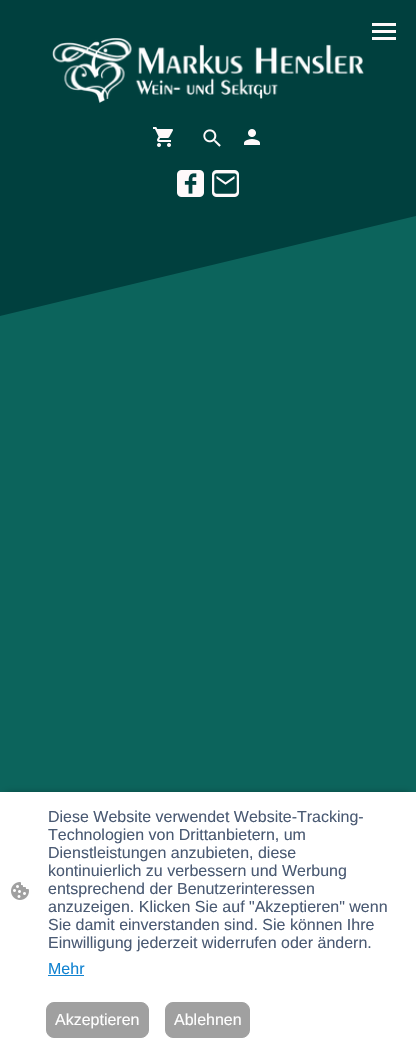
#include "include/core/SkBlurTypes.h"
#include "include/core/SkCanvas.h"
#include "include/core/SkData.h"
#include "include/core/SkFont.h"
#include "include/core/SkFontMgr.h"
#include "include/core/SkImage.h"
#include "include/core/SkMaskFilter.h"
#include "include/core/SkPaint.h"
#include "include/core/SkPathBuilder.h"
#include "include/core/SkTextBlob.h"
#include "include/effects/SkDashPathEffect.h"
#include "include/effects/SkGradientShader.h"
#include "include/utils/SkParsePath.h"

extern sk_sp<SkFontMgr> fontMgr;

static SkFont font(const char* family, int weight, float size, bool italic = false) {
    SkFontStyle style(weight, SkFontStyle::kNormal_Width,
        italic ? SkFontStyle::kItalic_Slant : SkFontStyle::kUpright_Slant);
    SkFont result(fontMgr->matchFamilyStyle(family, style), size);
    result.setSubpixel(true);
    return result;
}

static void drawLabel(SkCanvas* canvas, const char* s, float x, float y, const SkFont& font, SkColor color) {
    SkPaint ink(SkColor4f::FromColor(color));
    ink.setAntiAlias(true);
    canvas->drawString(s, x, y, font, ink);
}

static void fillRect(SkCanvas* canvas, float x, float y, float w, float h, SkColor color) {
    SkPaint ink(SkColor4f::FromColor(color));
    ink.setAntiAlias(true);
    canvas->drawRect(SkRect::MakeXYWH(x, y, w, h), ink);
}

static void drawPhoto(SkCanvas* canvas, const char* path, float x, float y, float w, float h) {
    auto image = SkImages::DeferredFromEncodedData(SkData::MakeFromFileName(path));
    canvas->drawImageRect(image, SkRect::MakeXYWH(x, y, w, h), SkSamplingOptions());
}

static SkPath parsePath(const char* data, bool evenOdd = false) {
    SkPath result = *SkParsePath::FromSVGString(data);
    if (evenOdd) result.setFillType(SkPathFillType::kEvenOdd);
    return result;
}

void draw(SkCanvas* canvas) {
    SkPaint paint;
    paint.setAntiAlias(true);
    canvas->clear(0xFF0C645C);
    fillRect(canvas, 0, 0, 416, 316, 0xFF00403E);
    fillRect(canvas, 372, 23, 24, 3, 0xFFFEF9FA);
    fillRect(canvas, 372, 30, 24, 3, 0xFFFEF9FA);
    fillRect(canvas, 372, 37, 24, 3, 0xFFFEF9FA);
    drawPhoto(canvas, "assets/img1.png", 153, 127, 20, 20);
    drawPhoto(canvas, "assets/img2.png", 203, 129, 18, 18);
    drawPhoto(canvas, "assets/img3.png", 244, 129, 16, 16);
    drawPhoto(canvas, "assets/img4.png", 52, 38, 312, 65);
    drawPhoto(canvas, "assets/img5.png", 177, 170, 27, 27);
    drawPhoto(canvas, "assets/img6.png", 212, 170, 27, 27);
    paint.setColor(0xFF0C645C);
    canvas->drawPath(parsePath("M0 316V732H416V216Z"), paint);
    paint.setColor(0xA1000000);
    paint.setMaskFilter(SkMaskFilter::MakeBlur(kNormal_SkBlurStyle, 4));
    canvas->drawRect(SkRect::MakeXYWH(6, 795, 404, 242), paint);
    paint.setMaskFilter(nullptr);
    fillRect(canvas, 0, 792, 416, 254, 0xFFFFFFFF);
    drawPhoto(canvas, "assets/img7.png", 11, 882, 18, 18);
    SkFont font1 = font("Liberation Sans", 400, 16);
    drawLabel(canvas, "Diese Website verwendet Website-Tracking-", 48, 822, font1, 0xFF4A5A73);
    drawLabel(canvas, "Technologien von Drittanbietern, um", 48, 840, font1, 0xFF4A5A73);
    drawLabel(canvas, "Dienstleistungen anzubieten, diese", 48, 858, font1, 0xFF4A5A73);
    drawLabel(canvas, "kontinuierlich zu verbessern und Werbung", 48, 876, font1, 0xFF4A5A73);
    drawLabel(canvas, "entsprechend der Benutzerinteressen", 48, 894, font1, 0xFF4A5A73);
    drawLabel(canvas, "anzuzeigen. Klicken Sie auf \"Akzeptieren\" wenn", 48, 912, font1, 0xFF4A5A73);
    drawLabel(canvas, "Sie damit einverstanden sind. Sie können Ihre", 48, 930, font1, 0xFF4A5A73);
    drawLabel(canvas, "Einwilligung jederzeit widerrufen oder ändern.", 48, 948, font1, 0xFF4A5A73);
    drawLabel(canvas, "Mehr", 48, 974, font1, 0xFF1183D1);
    fillRect(canvas, 48, 975, 36, 1, 0xFF1183D1);
    paint.setColor(0xFFA0A0A0);
    canvas->drawRoundRect(SkRect::MakeXYWH(46.5f, 1002.5f, 102, 35), 7.5f, 7.5f, paint);
    paint.setStroke(true);
    paint.setStrokeWidth(1);
    canvas->drawRoundRect(SkRect::MakeXYWH(46.5f, 1002.5f, 102, 35), 7.5f, 7.5f, paint);
    drawLabel(canvas, "Akzeptieren", 55, 1025, font1, 0xFFFFFFFF);
    paint.setStroke(false);
    canvas->drawRoundRect(SkRect::MakeXYWH(165.5f, 1002.5f, 84, 35), 7.5f, 7.5f, paint);
    paint.setStroke(true);
    canvas->drawRoundRect(SkRect::MakeXYWH(165.5f, 1002.5f, 84, 35), 7.5f, 7.5f, paint);
    drawLabel(canvas, "Ablehnen", 174, 1025, font1, 0xFFFFFFFF);
}
